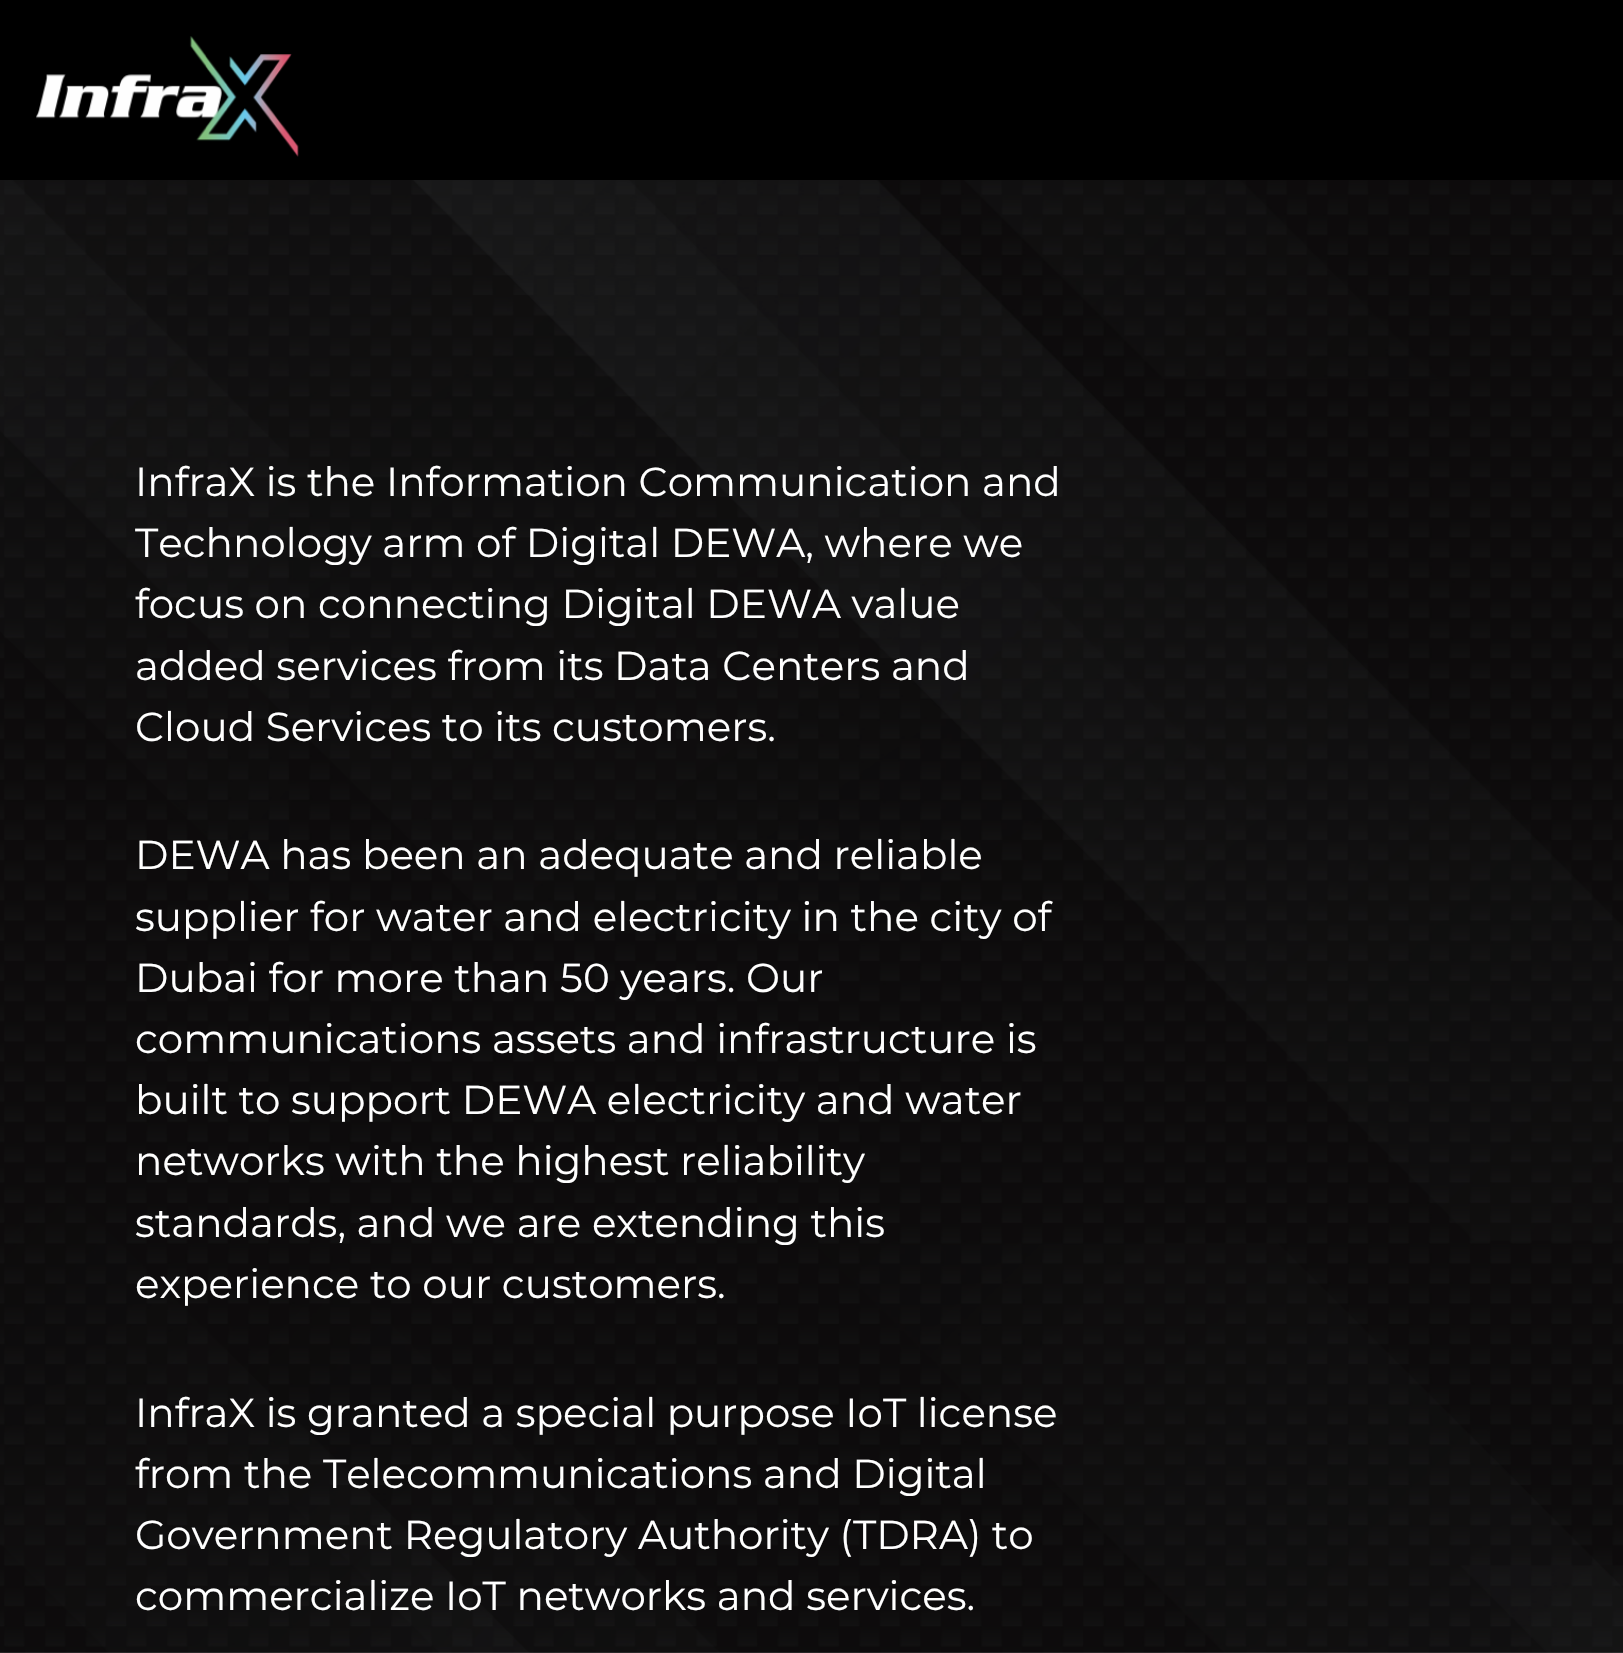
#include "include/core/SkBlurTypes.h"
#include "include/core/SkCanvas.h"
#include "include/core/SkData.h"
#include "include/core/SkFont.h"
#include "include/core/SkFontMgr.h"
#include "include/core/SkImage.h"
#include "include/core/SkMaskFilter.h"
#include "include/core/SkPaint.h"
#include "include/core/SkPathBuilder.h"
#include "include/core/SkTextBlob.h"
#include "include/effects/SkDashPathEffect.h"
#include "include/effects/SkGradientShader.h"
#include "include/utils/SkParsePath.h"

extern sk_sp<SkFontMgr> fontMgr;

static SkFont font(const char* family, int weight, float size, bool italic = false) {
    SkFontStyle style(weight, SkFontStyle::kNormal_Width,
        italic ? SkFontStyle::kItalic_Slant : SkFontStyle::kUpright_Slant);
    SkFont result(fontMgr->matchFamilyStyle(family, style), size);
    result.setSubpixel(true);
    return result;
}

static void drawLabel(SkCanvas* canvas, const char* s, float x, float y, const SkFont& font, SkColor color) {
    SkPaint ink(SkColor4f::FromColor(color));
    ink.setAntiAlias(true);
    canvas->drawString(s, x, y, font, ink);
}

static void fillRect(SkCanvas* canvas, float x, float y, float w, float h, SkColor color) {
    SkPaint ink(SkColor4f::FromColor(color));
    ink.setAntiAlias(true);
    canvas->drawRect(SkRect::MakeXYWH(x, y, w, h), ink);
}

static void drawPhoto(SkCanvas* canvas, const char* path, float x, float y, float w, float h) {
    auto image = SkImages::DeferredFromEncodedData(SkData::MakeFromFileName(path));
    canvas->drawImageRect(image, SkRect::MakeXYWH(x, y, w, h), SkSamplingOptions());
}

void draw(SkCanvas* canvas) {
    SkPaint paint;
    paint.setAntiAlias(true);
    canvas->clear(0xFFFFFFFF);
    fillRect(canvas, 0, 0, 1623, 180, 0xFF000000);
    drawPhoto(canvas, "assets/img1.png", 36, 36, 263, 121);
    drawPhoto(canvas, "assets/img2.png", 0, 180, 1623, 1473);
    SkFont font1 = font("Montserrat", 400, 40.5f);
    drawLabel(canvas, "InfraX is the Information Communication and", 135, 496, font1, 0xFFFFFFFF);
    drawLabel(canvas, "Technology arm of Digital DEWA, where we", 135, 557, font1, 0xFFFFFFFF);
    drawLabel(canvas, "focus on connecting Digital DEWA value", 135, 618, font1, 0xFFFFFFFF);
    drawLabel(canvas, "added services from its Data Centers and", 135, 680, font1, 0xFFFFFFFF);
    drawLabel(canvas, "Cloud Services to its customers.", 135, 741, font1, 0xFFFFFFFF);
    drawLabel(canvas, "DEWA has been an adequate and reliable", 135, 869, font1, 0xFFFFFFFF);
    drawLabel(canvas, "supplier for water and electricity in the city of", 135, 931, font1, 0xFFFFFFFF);
    drawLabel(canvas, "Dubai for more than 50 years. Our", 135, 992, font1, 0xFFFFFFFF);
    drawLabel(canvas, "communications assets and infrastructure is", 135, 1053, font1, 0xFFFFFFFF);
    drawLabel(canvas, "built to support DEWA electricity and water", 135, 1114, font1, 0xFFFFFFFF);
    drawLabel(canvas, "networks with the highest reliability", 135, 1175, font1, 0xFFFFFFFF);
    drawLabel(canvas, "standards, and we are extending this", 135, 1237, font1, 0xFFFFFFFF);
    drawLabel(canvas, "experience to our customers.", 135, 1298, font1, 0xFFFFFFFF);
    drawLabel(canvas, "InfraX is granted a special purpose IoT license", 135, 1427, font1, 0xFFFFFFFF);
    drawLabel(canvas, "from the Telecommunications and Digital", 135, 1488, font1, 0xFFFFFFFF);
    drawLabel(canvas, "Government Regulatory Authority (TDRA) to", 135, 1549, font1, 0xFFFFFFFF);
    drawLabel(canvas, "commercialize IoT networks and services.", 135, 1610, font1, 0xFFFFFFFF);
}
